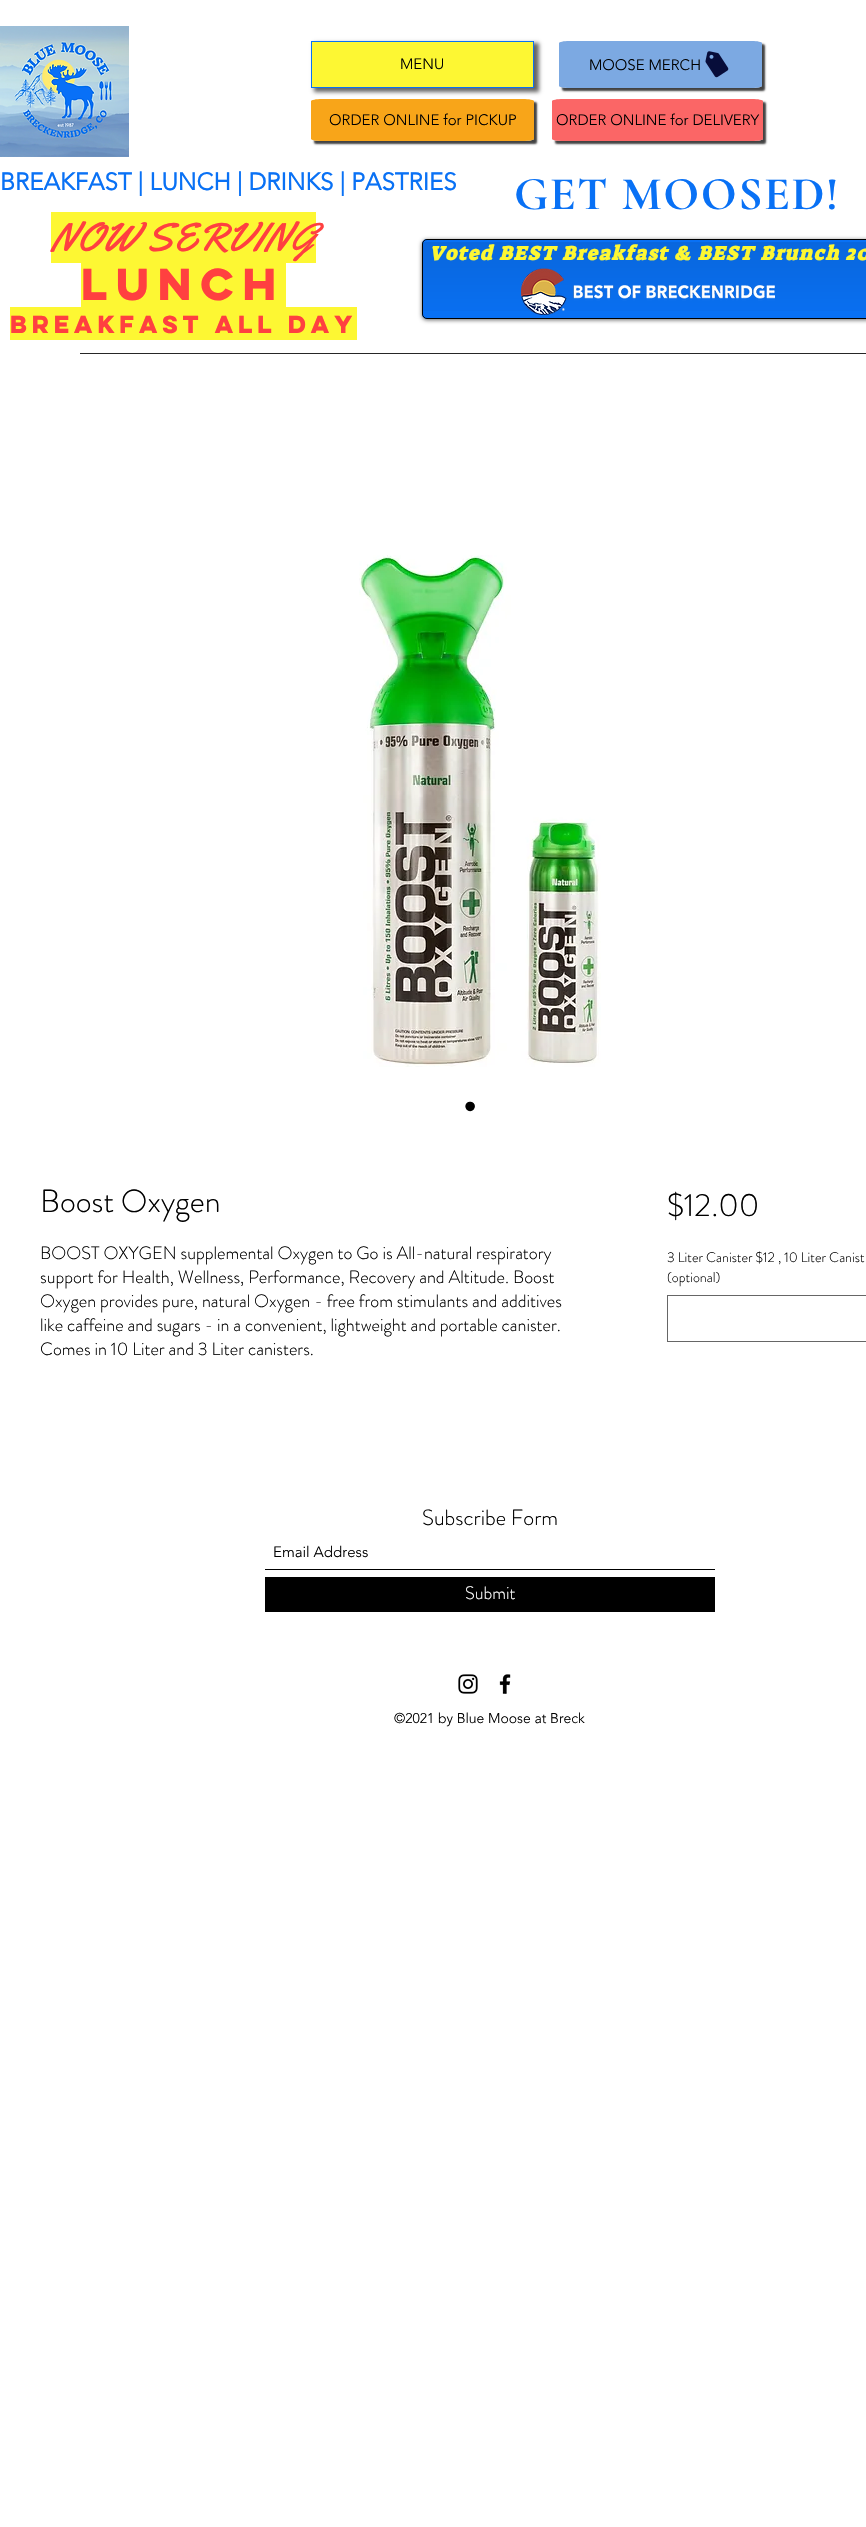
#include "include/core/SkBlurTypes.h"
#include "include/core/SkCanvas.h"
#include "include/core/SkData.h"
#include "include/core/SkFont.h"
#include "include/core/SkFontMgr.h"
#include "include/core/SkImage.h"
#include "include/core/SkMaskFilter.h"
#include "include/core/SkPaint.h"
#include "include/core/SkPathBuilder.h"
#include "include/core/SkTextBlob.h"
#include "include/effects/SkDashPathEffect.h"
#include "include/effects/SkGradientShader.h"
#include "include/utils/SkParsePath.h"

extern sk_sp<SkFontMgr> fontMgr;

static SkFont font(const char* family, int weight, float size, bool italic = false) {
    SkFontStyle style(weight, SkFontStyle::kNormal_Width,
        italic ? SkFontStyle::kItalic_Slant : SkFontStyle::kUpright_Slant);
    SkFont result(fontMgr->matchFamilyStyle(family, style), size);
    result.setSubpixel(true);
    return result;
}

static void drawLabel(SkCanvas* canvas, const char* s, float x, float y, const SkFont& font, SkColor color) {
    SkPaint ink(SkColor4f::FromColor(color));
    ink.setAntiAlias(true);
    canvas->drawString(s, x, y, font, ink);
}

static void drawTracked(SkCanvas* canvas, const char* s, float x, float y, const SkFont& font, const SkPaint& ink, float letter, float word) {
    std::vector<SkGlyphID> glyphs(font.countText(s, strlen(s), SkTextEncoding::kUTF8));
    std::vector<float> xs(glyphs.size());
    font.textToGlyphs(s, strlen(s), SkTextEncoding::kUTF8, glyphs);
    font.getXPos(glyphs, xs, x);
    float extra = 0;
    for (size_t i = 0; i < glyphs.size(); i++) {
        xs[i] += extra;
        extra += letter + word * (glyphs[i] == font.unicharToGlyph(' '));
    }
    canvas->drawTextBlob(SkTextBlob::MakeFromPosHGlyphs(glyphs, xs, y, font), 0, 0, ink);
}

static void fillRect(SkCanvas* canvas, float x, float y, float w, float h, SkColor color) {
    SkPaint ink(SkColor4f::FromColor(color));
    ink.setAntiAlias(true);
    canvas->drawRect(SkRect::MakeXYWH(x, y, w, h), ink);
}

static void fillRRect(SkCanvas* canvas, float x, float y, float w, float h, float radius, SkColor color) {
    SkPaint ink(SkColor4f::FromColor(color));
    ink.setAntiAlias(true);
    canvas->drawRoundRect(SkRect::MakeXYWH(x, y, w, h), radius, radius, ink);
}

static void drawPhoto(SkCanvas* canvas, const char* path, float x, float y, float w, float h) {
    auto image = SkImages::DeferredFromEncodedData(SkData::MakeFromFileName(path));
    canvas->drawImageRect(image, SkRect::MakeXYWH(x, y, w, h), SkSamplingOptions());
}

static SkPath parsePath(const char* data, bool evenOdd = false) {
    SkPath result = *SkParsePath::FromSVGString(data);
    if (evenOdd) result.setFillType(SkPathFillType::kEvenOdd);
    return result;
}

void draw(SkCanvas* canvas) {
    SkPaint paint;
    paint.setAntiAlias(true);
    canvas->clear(0xFFFFFFFF);
    drawPhoto(canvas, "assets/img1.png", 0, 26, 129, 131);
    paint.setColor(0x99000000);
    paint.setMaskFilter(SkMaskFilter::MakeBlur(kNormal_SkBlurStyle, 2));
    canvas->drawRect(SkRect::MakeXYWH(314, 43, 225, 49), paint);
    paint.setMaskFilter(nullptr);
    paint.setColor(0xFFFDF733);
    canvas->drawRect(SkRect::MakeXYWH(311.5f, 41.5f, 222, 46), paint);
    paint.setStroke(true);
    paint.setStrokeWidth(1);
    paint.setColor(0xFF0971F5);
    canvas->drawRect(SkRect::MakeXYWH(311.5f, 41.5f, 222, 46), paint);
    SkFont font1 = font("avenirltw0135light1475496", 300, 15);
    drawLabel(canvas, "MENU", 400, 69, font1, 0xFF000000);
    canvas->save();
    canvas->clipPath(parsePath("M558 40H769V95H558ZM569 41H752C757.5 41 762 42 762 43.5V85.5C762 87 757.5 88 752 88H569C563.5 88 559 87 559 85.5V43.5C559 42 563.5 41 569 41Z", true), true);
    paint.setStroke(false);
    paint.setColor(0xBD000000);
    paint.setMaskFilter(SkMaskFilter::MakeBlur(kNormal_SkBlurStyle, 1));
    canvas->drawRoundRect(SkRect::MakeXYWH(562, 44, 203, 47), 2.5f, 2.5f, paint);
    paint.setMaskFilter(nullptr);
    canvas->restore();
    paint.setColor(0x4FBFBFBF);
    canvas->drawPath(parsePath("M569 41H752C757 41 762 42 762 43V86C762 87 757 88 752 88H569C564 88 559 87 559 86V43C559 42 564 41 569 41Z"), paint);
    paint.setColor(0xFC7AA8E2);
    canvas->drawPath(parsePath("M569 41H752C757 41 762 42 762 43V86C762 87 757 88 752 88H569C564 88 559 87 559 86V43C559 42 564 41 569 41Z"), paint);
    drawLabel(canvas, "MOOSE MERCH", 589, 70, font1, 0xFF000000);
    drawPhoto(canvas, "assets/img2.png", 705, 51, 24, 27);
    canvas->save();
    canvas->clipPath(parsePath("M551 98H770V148H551ZM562.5 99H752.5C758.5 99 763 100 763 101V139C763 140 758.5 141 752.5 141H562.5C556.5 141 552 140 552 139V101C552 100 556.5 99 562.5 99Z", true), true);
    paint.setColor(0xBD000000);
    paint.setMaskFilter(SkMaskFilter::MakeBlur(kNormal_SkBlurStyle, 1));
    canvas->drawRoundRect(SkRect::MakeXYWH(555, 102, 211, 42), 2, 2, paint);
    paint.setMaskFilter(nullptr);
    canvas->restore();
    paint.setColor(0x4FBFBFBF);
    canvas->drawPath(parsePath("M563 99H752C758 99 763 100 763 101V139C763 140 758 141 752 141H563C557 141 552 140 552 139V101C552 100 557 99 563 99Z"), paint);
    paint.setColor(0xC7FF4040);
    canvas->drawPath(parsePath("M563 99H752C758 99 763 100 763 101V139C763 140 758 141 752 141H563C557 141 552 140 552 139V101C552 100 557 99 563 99Z"), paint);
    drawLabel(canvas, "ORDER ONLINE for DELIVERY", 556, 125, font1, 0xFF000000);
    SkFont font2 = font("avenirltw0135light1475496", 700, 24);
    drawLabel(canvas, "BREAKFAST | LUNCH | DRINKS | PASTRIES", 0, 190, font2, 0xFF0971F5);
    SkFont font3 = font("Cormorant Garamond", 700, 47);
    paint.setColor(0xFF0971F5);
    drawTracked(canvas, "GET MOOSED!", 514, 209, font3, paint, 1.5f, 0);
    fillRect(canvas, 51, 212, 265, 51, 0xFFFDF733);
    SkFont font4 = font("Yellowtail", 400, 40);
    drawLabel(canvas, "NOW SERVING", 51, 251, font4, 0xFFFF4040);
    fillRect(canvas, 81, 263, 205, 44, 0xFFFDF733);
    SkFont font5 = font("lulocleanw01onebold", 700, 40);
    drawLabel(canvas, "LUNCH", 81, 300, font5, 0xFFFF4040);
    fillRect(canvas, 10, 307, 347, 33, 0xFFFDF733);
    SkFont font6 = font("lulocleanw01onebold", 700, 22);
    drawLabel(canvas, "BREAKFAST ALL DAY", 10, 333, font6, 0xFFFF4040);
    paint.setColor(0x99000000);
    paint.setMaskFilter(SkMaskFilter::MakeBlur(kNormal_SkBlurStyle, 2));
    canvas->drawRoundRect(SkRect::MakeXYWH(422, 240, 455, 80), 5, 5, paint);
    paint.setMaskFilter(nullptr);
    fillRRect(canvas, 422, 239, 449, 80, 5, 0xFF0971F5);
    drawPhoto(canvas, "assets/img3.png", 422, 242, 444, 69);
    paint.setStroke(true);
    paint.setColor(0xFF000000);
    canvas->drawRoundRect(SkRect::MakeXYWH(422.5f, 239.5f, 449, 79), 4.5f, 4.5f, paint);
    SkFont font7 = font("Suez One", 700, 20, true);
    paint.setStroke(false);
    paint.setColor(0xFFFDF733);
    drawTracked(canvas, "Voted BEST Breakfast & BEST Brunch 20", 429, 260, font7, paint, 1.6f, 0);
    drawPhoto(canvas, "assets/img4.png", 521, 268, 254, 47);
    canvas->save();
    canvas->clipPath(parsePath("M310 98H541V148H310ZM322 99H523C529 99 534 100 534 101V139C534 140 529 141 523 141H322C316 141 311 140 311 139V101C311 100 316 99 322 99Z", true), true);
    paint.setColor(0xBD000000);
    paint.setMaskFilter(SkMaskFilter::MakeBlur(kNormal_SkBlurStyle, 1));
    canvas->drawRoundRect(SkRect::MakeXYWH(314, 102, 223, 42), 2, 2, paint);
    paint.setMaskFilter(nullptr);
    canvas->restore();
    paint.setColor(0xE6F79B00);
    canvas->drawPath(parsePath("M322 99H523C529 99 534 100 534 101V139C534 140 529 141 523 141H322C316 141 311 140 311 139V101C311 100 316 99 322 99Z"), paint);
    drawLabel(canvas, "ORDER ONLINE for PICKUP", 329, 125, font1, 0xFF000000);
    fillRect(canvas, 80, 353, 786, 1, 0xFF262626);
    drawPhoto(canvas, "assets/img5.png", 359, 555, 242, 512);
    SkFont font8 = font("Liberation Sans", 400, 35);
    drawLabel(canvas, "•", 464, 1118, font8, 0xFF000000);
    SkFont font9 = font("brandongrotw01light", 300, 32);
    drawLabel(canvas, "Boost Oxygen", 40, 1212, font9, 0xFF000000);
    SkFont font10 = font("brandongrotw01light", 300, 18);
    drawLabel(canvas, "BOOST OXYGEN supplemental Oxygen to Go is All-natural respiratory", 40, 1259, font10, 0xFF000000);
    drawLabel(canvas, "support for Health, Wellness, Performance, Recovery and Altitude. Boost", 40, 1283, font10, 0xFF000000);
    drawLabel(canvas, "Oxygen provides pure, natural Oxygen - free from stimulants and additives", 40, 1307, font10, 0xFF000000);
    drawLabel(canvas, "like caffeine and sugars - in a convenient, lightweight and portable canister.", 40, 1331, font10, 0xFF000000);
    drawLabel(canvas, "Comes in 10 Liter and 3 Liter canisters.", 40, 1355, font10, 0xFF000000);
    drawLabel(canvas, "$12.00", 667, 1216, font9, 0xFF000000);
    SkFont font11 = font("brandongrotw01light", 300, 14);
    drawLabel(canvas, "3 Liter Canister $12 , 10 Liter Canist", 667, 1262, font11, 0xFF000000);
    drawLabel(canvas, "(optional)", 667, 1282, font11, 0xFF000000);
    paint.setStroke(true);
    paint.setColor(0xFF666666);
    canvas->drawRect(SkRect::MakeXYWH(667.5f, 1295.5f, 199, 46), paint);
    SkFont font12 = font("brandongrotw01light", 300, 22);
    drawLabel(canvas, "Subscribe Form", 422, 1525, font12, 0xFF000000);
    fillRect(canvas, 265, 1569, 450, 1, 0xFF000000);
    drawLabel(canvas, "Email Address", 273, 1557, font1, 0xFF000000);
    fillRect(canvas, 265, 1577, 450, 35, 0xFF000000);
    drawLabel(canvas, "Submit", 465, 1599, font10, 0xFFFFFFFF);
    drawPhoto(canvas, "assets/img6.png", 458, 1674, 20, 20);
    drawPhoto(canvas, "assets/img7.png", 499, 1674, 12, 20);
    SkFont font13 = font("avenirltw0135light1475496", 300, 14);
    drawLabel(canvas, "©2021 by Blue Moose at Breck", 394, 1723, font13, 0xFF000000);
}
